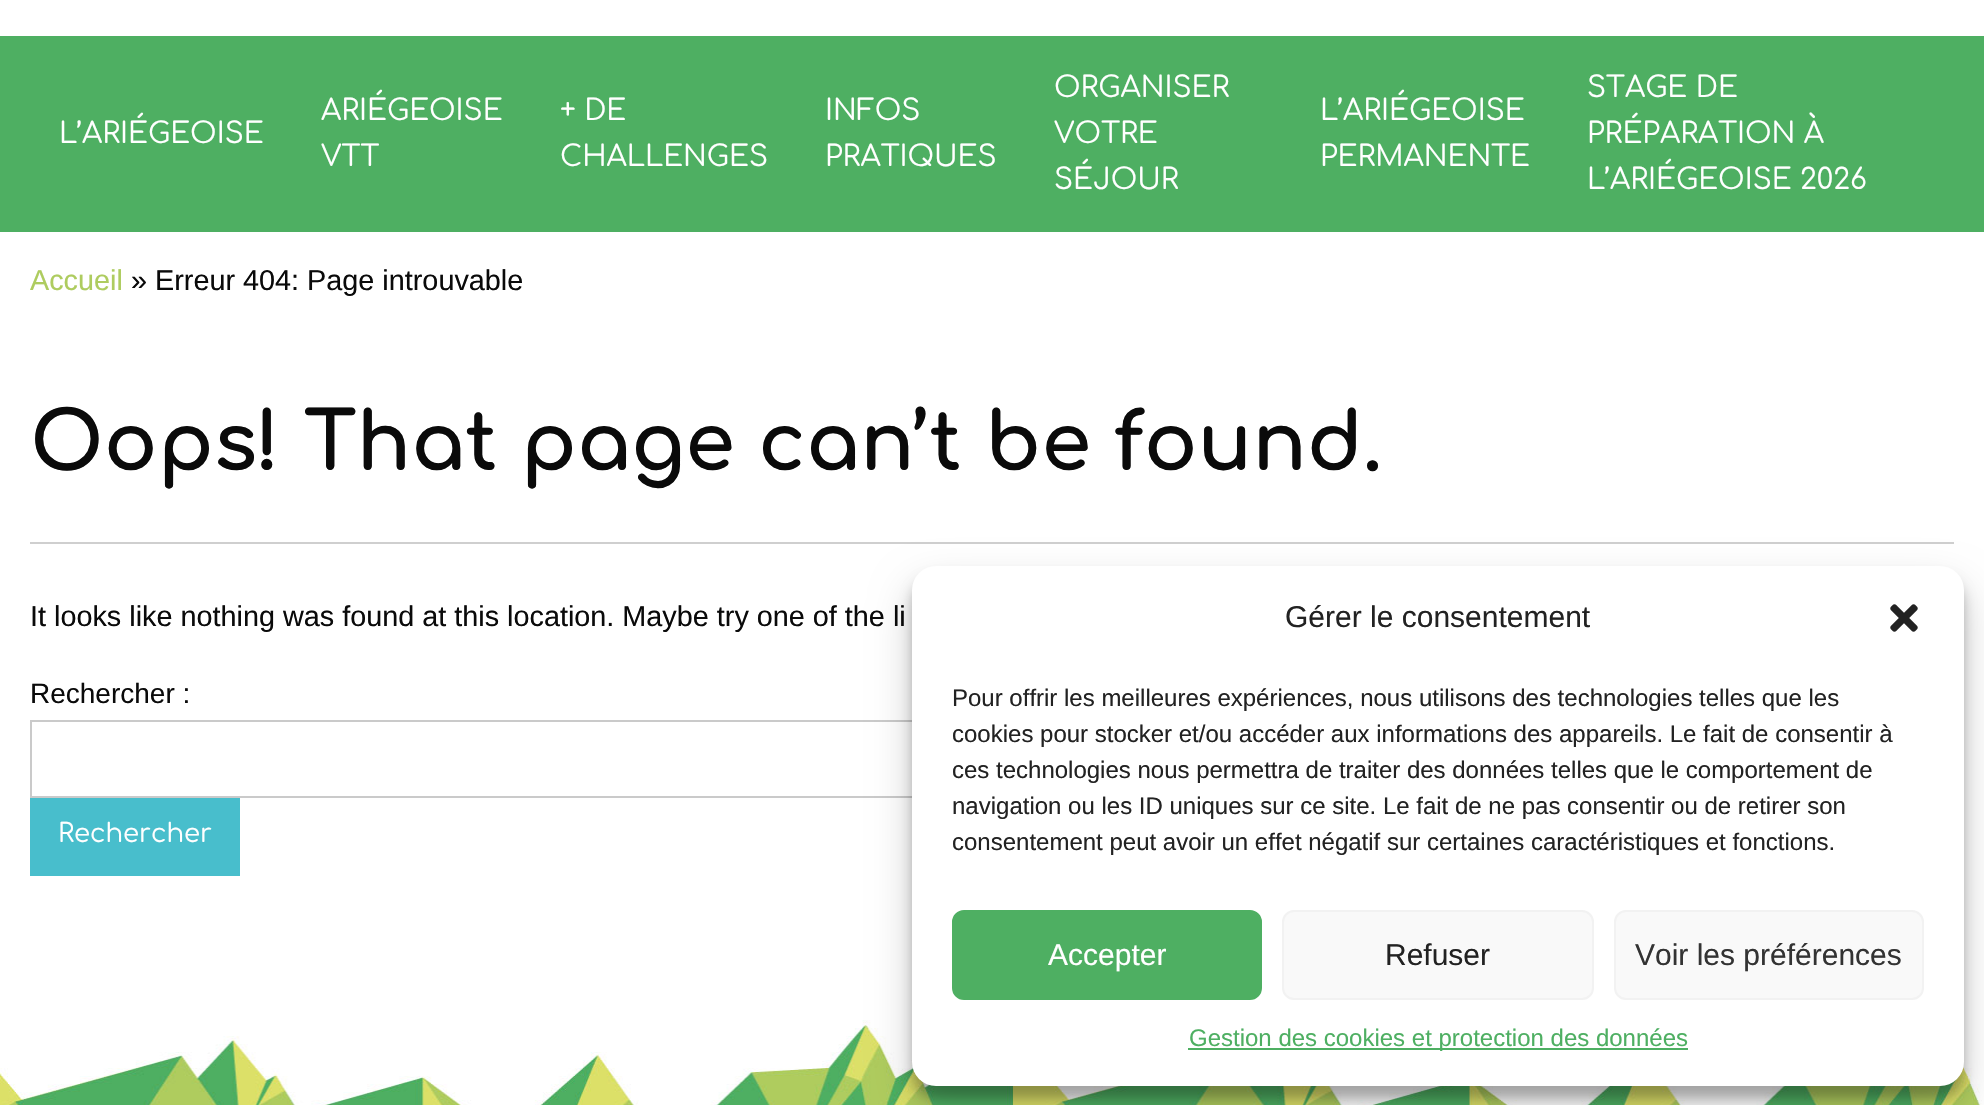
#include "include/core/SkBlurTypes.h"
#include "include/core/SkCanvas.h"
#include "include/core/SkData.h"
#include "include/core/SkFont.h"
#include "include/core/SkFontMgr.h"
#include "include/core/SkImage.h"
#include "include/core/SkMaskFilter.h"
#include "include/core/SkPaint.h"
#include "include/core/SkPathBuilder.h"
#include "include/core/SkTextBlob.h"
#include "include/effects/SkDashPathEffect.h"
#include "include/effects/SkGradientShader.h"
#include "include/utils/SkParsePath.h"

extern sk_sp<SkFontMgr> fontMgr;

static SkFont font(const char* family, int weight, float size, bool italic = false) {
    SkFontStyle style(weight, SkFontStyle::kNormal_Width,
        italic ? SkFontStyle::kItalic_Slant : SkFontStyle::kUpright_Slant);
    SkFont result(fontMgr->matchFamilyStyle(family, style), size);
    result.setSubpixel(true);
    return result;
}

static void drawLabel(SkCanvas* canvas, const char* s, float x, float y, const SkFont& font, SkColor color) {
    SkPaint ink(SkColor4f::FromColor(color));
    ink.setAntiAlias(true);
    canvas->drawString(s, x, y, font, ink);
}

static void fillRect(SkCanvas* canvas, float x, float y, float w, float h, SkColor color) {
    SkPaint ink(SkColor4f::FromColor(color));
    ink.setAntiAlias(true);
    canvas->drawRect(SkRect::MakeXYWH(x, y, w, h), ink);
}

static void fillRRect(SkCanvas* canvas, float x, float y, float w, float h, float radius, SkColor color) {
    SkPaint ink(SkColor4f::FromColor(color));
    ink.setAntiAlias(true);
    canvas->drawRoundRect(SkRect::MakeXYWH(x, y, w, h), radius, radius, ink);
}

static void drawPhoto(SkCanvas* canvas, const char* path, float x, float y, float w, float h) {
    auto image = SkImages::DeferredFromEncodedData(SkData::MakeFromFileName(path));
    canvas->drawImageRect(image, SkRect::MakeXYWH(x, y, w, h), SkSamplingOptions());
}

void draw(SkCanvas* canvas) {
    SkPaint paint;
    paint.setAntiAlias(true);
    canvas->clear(0xFFFFFFFF);
    fillRect(canvas, 0, 36, 1984, 196, 0xFF4EAF62);
    SkFont font1 = font("Comfortaa", 400, 28.8f);
    drawLabel(canvas, "L’ARIÉGEOISE", 59, 143, font1, 0xFFFFFFFF);
    drawLabel(canvas, "ARIÉGEOISE", 321, 120, font1, 0xFFFFFFFF);
    drawLabel(canvas, "VTT", 321, 166, font1, 0xFFFFFFFF);
    drawLabel(canvas, "+ DE", 560, 120, font1, 0xFFFFFFFF);
    drawLabel(canvas, "CHALLENGES", 560, 166, font1, 0xFFFFFFFF);
    drawLabel(canvas, "INFOS", 825, 120, font1, 0xFFFFFFFF);
    drawLabel(canvas, "PRATIQUES", 825, 166, font1, 0xFFFFFFFF);
    drawLabel(canvas, "ORGANISER", 1054, 97, font1, 0xFFFFFFFF);
    drawLabel(canvas, "VOTRE", 1054, 143, font1, 0xFFFFFFFF);
    drawLabel(canvas, "SÉJOUR", 1054, 189, font1, 0xFFFFFFFF);
    drawLabel(canvas, "L’ARIÉGEOISE", 1320, 120, font1, 0xFFFFFFFF);
    drawLabel(canvas, "PERMANENTE", 1320, 166, font1, 0xFFFFFFFF);
    drawLabel(canvas, "STAGE DE", 1587, 97, font1, 0xFFFFFFFF);
    drawLabel(canvas, "PRÉPARATION À", 1587, 143, font1, 0xFFFFFFFF);
    drawLabel(canvas, "L’ARIÉGEOISE 2026", 1587, 189, font1, 0xFFFFFFFF);
    SkFont font2 = font("Liberation Sans", 400, 28.8f);
    drawLabel(canvas, "Accueil", 30, 290, font2, 0xFFAECC5F);
    drawLabel(canvas, "» Erreur 404: Page introuvable", 131, 290, font2, 0xFF0A0A0A);
    fillRect(canvas, 30, 542, 1924, 2, 0xFFCFCFCF);
    SkFont font3 = font("Comfortaa", 700, 80);
    drawLabel(canvas, "Oops! That page can’t be found.", 30, 470, font3, 0xFF0A0A0A);
    drawLabel(canvas, "It looks like nothing was found at this location. Maybe try one of the li", 30, 626, font2, 0xFF0A0A0A);
    SkFont font4 = font("Liberation Sans", 400, 28);
    drawLabel(canvas, "Rechercher :", 30, 703, font4, 0xFF0A0A0A);
    paint.setStroke(true);
    paint.setStrokeWidth(2);
    paint.setColor(0xFFCACACA);
    canvas->drawRect(SkRect::MakeXYWH(31, 721, 1922, 76), paint);
    fillRect(canvas, 30, 798, 210, 78, 0xFF48BECC);
    SkFont font5 = font("Comfortaa", 400, 26);
    drawLabel(canvas, "Rechercher", 58, 842, font5, 0xFFFFFFFF);
    drawPhoto(canvas, "assets/img2.png", 0, 1020, 1982, 85);
    paint.setStroke(false);
    paint.setColor(0x3B000000);
    paint.setMaskFilter(SkMaskFilter::MakeBlur(kNormal_SkBlurStyle, 6));
    canvas->drawRoundRect(SkRect::MakeXYWH(912, 578, 1052, 520), 24, 24, paint);
    paint.setMaskFilter(nullptr);
    paint.setColor(0x30000000);
    paint.setMaskFilter(SkMaskFilter::MakeBlur(kNormal_SkBlurStyle, 20));
    canvas->drawRoundRect(SkRect::MakeXYWH(912, 586, 1052, 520), 24, 24, paint);
    paint.setMaskFilter(nullptr);
    fillRRect(canvas, 912, 566, 1052, 520, 24, 0xFFFFFFFF);
    SkFont font6 = font("Liberation Sans", 400, 30);
    drawLabel(canvas, "Gérer le consentement", 1285, 627, font6, 0xFF222222);
    drawPhoto(canvas, "assets/img1.png", 1890, 604, 28, 28);
    SkFont font7 = font("Liberation Sans", 400, 24);
    drawLabel(canvas, "Pour offrir les meilleures expériences, nous utilisons des technologies telles que les", 952, 706, font7, 0xFF222222);
    drawLabel(canvas, "cookies pour stocker et/ou accéder aux informations des appareils. Le fait de consentir à", 952, 742, font7, 0xFF222222);
    drawLabel(canvas, "ces technologies nous permettra de traiter des données telles que le comportement de", 952, 778, font7, 0xFF222222);
    drawLabel(canvas, "navigation ou les ID uniques sur ce site. Le fait de ne pas consentir ou de retirer son", 952, 814, font7, 0xFF222222);
    drawLabel(canvas, "consentement peut avoir un effet négatif sur certaines caractéristiques et fonctions.", 952, 850, font7, 0xFF222222);
    paint.setColor(0xFF4EAF62);
    canvas->drawRoundRect(SkRect::MakeXYWH(953, 911, 308, 88), 11, 11, paint);
    paint.setStroke(true);
    canvas->drawRoundRect(SkRect::MakeXYWH(953, 911, 308, 88), 11, 11, paint);
    drawLabel(canvas, "Accepter", 1048, 965, font6, 0xFFFFFFFF);
    paint.setStroke(false);
    paint.setColor(0xFFF9F9F9);
    canvas->drawRoundRect(SkRect::MakeXYWH(1283, 911, 310, 88), 11, 11, paint);
    paint.setStroke(true);
    paint.setColor(0xFFF2F2F2);
    canvas->drawRoundRect(SkRect::MakeXYWH(1283, 911, 310, 88), 11, 11, paint);
    drawLabel(canvas, "Refuser", 1385, 965, font6, 0xFF222222);
    paint.setStroke(false);
    paint.setColor(0xFFF9F9F9);
    canvas->drawRoundRect(SkRect::MakeXYWH(1615, 911, 308, 88), 11, 11, paint);
    paint.setStroke(true);
    paint.setColor(0xFFF2F2F2);
    canvas->drawRoundRect(SkRect::MakeXYWH(1615, 911, 308, 88), 11, 11, paint);
    drawLabel(canvas, "Voir les préférences", 1635, 965, font6, 0xFF333333);
    fillRect(canvas, 1188, 1048, 500, 2, 0xFF4EAF62);
    drawLabel(canvas, "Gestion des cookies et protection des données", 1189, 1046, font7, 0xFF4EAF62);
}
